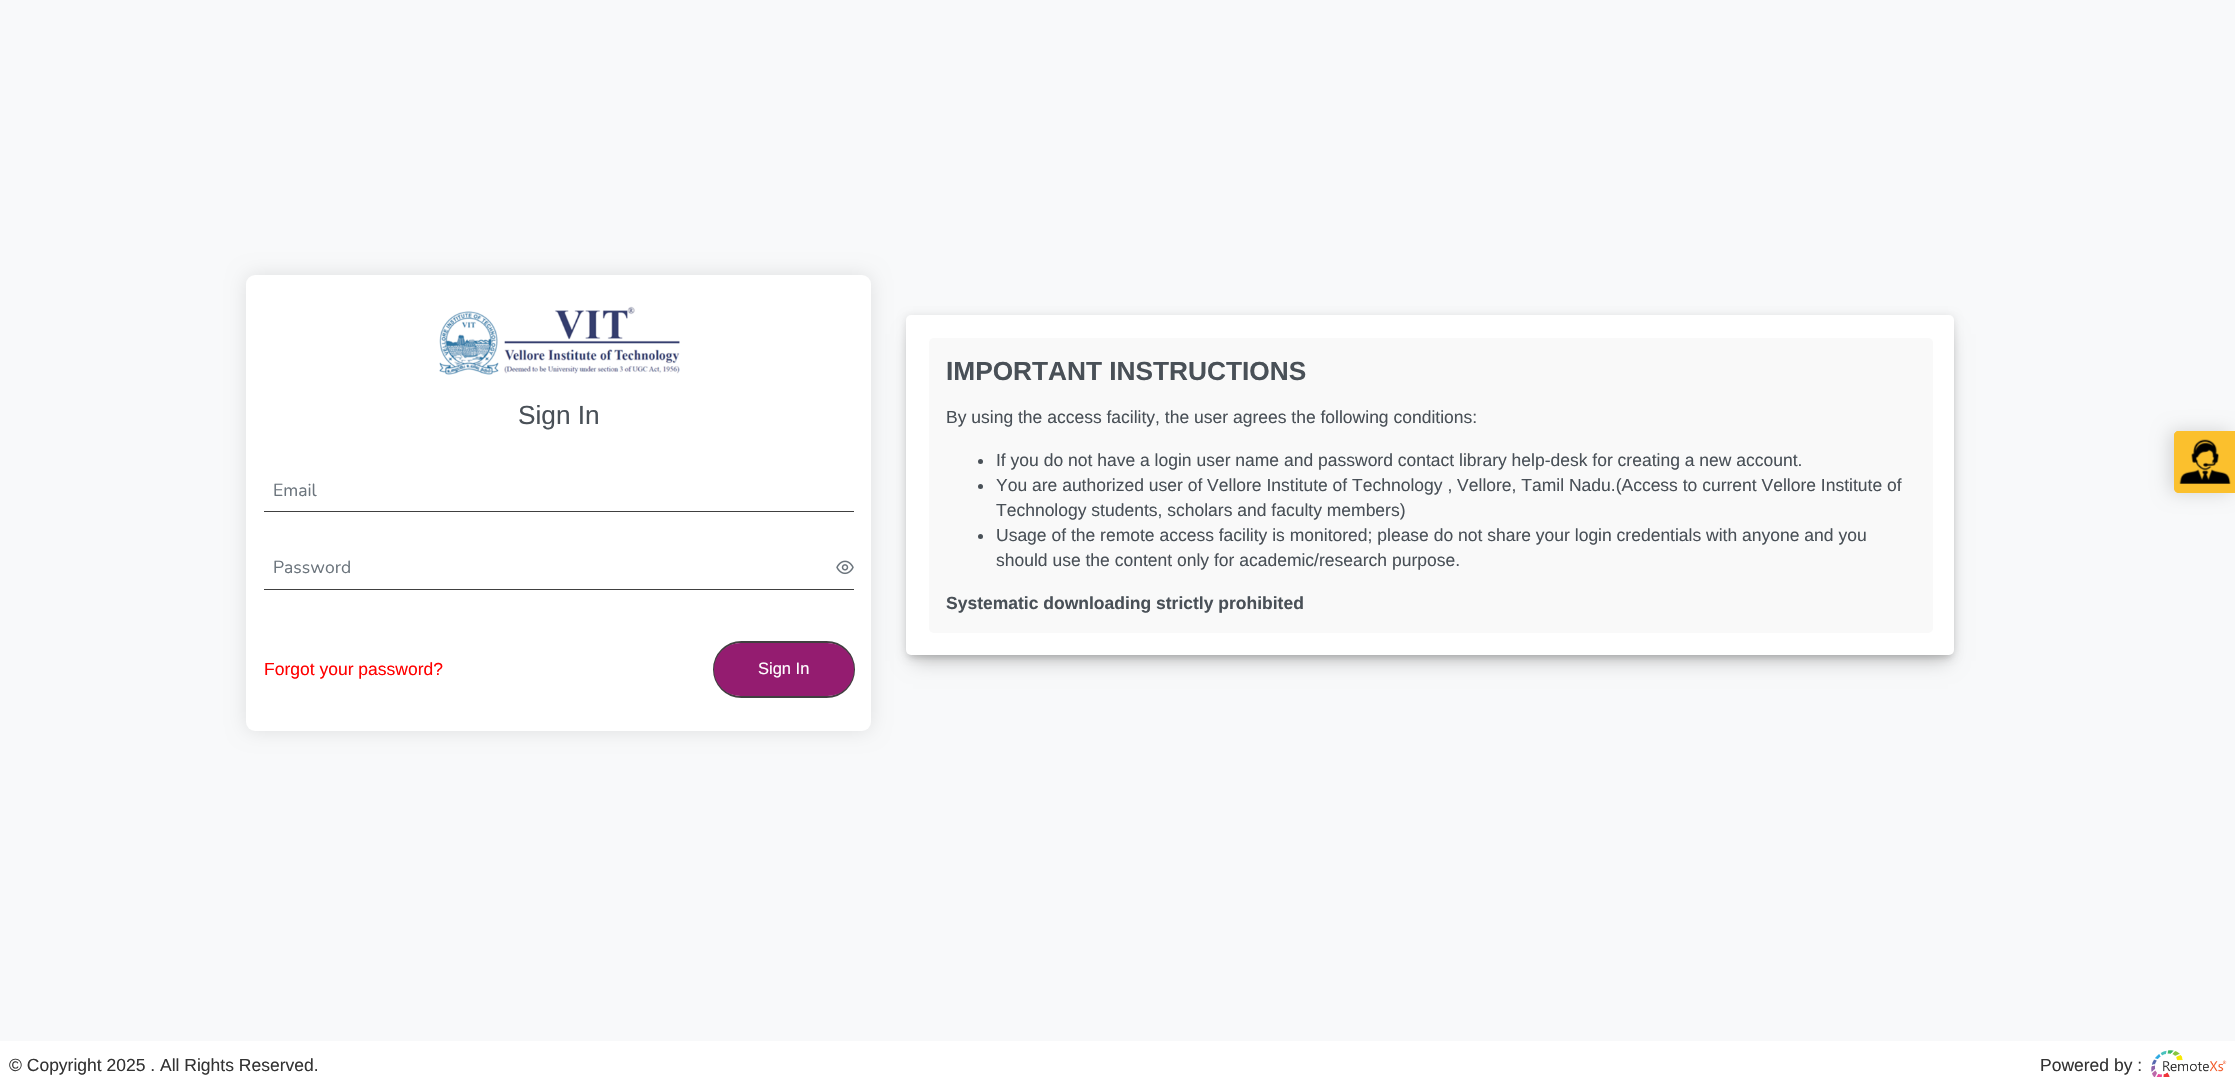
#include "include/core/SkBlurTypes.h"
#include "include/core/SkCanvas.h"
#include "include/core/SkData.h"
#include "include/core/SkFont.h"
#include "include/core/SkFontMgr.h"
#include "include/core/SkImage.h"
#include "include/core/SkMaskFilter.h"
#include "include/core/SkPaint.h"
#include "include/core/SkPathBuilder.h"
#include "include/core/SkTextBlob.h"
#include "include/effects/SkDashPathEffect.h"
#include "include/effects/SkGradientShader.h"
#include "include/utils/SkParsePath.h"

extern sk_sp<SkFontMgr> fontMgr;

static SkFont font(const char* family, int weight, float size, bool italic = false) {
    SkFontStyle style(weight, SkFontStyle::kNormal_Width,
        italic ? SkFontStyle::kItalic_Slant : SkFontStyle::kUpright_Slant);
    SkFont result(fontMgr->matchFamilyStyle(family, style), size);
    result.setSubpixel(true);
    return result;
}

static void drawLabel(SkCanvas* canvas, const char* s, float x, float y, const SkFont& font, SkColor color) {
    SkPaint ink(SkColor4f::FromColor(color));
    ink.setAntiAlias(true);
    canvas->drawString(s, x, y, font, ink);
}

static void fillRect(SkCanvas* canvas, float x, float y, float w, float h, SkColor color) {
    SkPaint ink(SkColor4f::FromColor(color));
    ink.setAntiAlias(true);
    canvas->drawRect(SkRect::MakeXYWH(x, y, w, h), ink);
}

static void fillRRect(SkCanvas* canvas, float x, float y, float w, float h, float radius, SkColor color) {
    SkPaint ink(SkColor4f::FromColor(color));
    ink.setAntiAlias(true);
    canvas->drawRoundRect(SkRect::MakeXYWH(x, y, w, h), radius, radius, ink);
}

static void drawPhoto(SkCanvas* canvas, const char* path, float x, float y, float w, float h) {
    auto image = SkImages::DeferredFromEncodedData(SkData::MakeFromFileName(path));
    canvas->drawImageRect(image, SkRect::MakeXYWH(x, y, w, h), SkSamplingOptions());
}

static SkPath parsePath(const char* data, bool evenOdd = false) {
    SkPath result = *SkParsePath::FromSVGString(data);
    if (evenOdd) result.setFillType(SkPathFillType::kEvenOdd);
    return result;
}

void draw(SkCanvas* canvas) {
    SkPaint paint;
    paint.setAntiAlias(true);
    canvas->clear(0xFFFFFFFF);
    fillRect(canvas, 0, 0, 2235, 1041, 0xFFF8F9FA);
    paint.setColor(0x1A000000);
    paint.setMaskFilter(SkMaskFilter::MakeBlur(kNormal_SkBlurStyle, 9.5f));
    canvas->drawRoundRect(SkRect::MakeXYWH(246, 275, 625, 456), 9, 9, paint);
    paint.setMaskFilter(nullptr);
    fillRRect(canvas, 246, 275, 625, 456, 9, 0xFFFFFFFF);
    drawPhoto(canvas, "assets/img1.png", 439, 306, 241, 69);
    SkFont font1 = font("Liberation Sans", 400, 26.25f);
    drawLabel(canvas, "Sign In", 518, 424, font1, 0xFF495057);
    fillRect(canvas, 264, 511, 590, 1, 0xFF404040);
    SkFont font2 = font("Nunito", 400, 17.5f);
    drawLabel(canvas, "Email", 273, 496, font2, 0xFF6C757D);
    fillRect(canvas, 264, 589, 590, 1, 0xFF404040);
    drawLabel(canvas, "Password", 273, 573, font2, 0xFF6C757D);
    drawPhoto(canvas, "assets/img2.png", 836, 560, 18, 15);
    SkFont font3 = font("Liberation Sans", 400, 17.5f);
    drawLabel(canvas, "Forgot your password?", 264, 675, font3, 0xFFFF0000);
    paint.setStroke(true);
    paint.setStrokeWidth(2);
    paint.setColor(0xFF404040);
    canvas->drawRoundRect(SkRect::MakeXYWH(714, 642, 140, 55), 27.5f, 27.5f, paint);
    fillRRect(canvas, 714, 643, 140, 53, 26.5f, 0xFF941C70);
    SkFont font4 = font("Liberation Sans", 400, 16.5f);
    drawLabel(canvas, "Sign In", 758, 674, font4, 0xFFFFFFFF);
    paint.setStroke(false);
    paint.setColor(0x33000000);
    paint.setMaskFilter(SkMaskFilter::MakeBlur(kNormal_SkBlurStyle, 9.5f));
    canvas->drawRect(SkRect::MakeXYWH(913, 334, 1035, 327), paint);
    paint.setMaskFilter(nullptr);
    paint.setColor(0x1F000000);
    paint.setMaskFilter(SkMaskFilter::MakeBlur(kNormal_SkBlurStyle, 3));
    canvas->drawRoundRect(SkRect::MakeXYWH(909, 323, 1042, 335), 2.5f, 2.5f, paint);
    paint.setMaskFilter(nullptr);
    paint.setColor(0x1A000000);
    paint.setMaskFilter(SkMaskFilter::MakeBlur(kNormal_SkBlurStyle, 4.5f));
    canvas->drawRoundRect(SkRect::MakeXYWH(906, 316, 1048, 340), 5, 5, paint);
    paint.setMaskFilter(nullptr);
    fillRRect(canvas, 906, 315, 1048, 340, 5, 0xFFFFFFFF);
    fillRRect(canvas, 929, 338, 1004, 295, 5, 0xFFF9F9F9);
    SkFont font5 = font("Liberation Sans", 700, 26.25f);
    drawLabel(canvas, "IMPORTANT INSTRUCTIONS", 946, 380, font5, 0xFF495057);
    drawLabel(canvas, "By using the access facility, the user agrees the following conditions:", 946, 423, font3, 0xFF495057);
    paint.setColor(0xFF495057);
    canvas->drawCircle(980.5f, 461.5f, 2.5f, paint);
    drawLabel(canvas, "If you do not have a login user name and password contact library help-desk for creating a new account.", 996, 466, font3, 0xFF495057);
    canvas->drawCircle(980.5f, 486.5f, 2.5f, paint);
    drawLabel(canvas, "You are authorized user of Vellore Institute of Technology , Vellore, Tamil Nadu.(Access to current Vellore Institute of", 996, 491, font3, 0xFF495057);
    drawLabel(canvas, "Technology students, scholars and faculty members)", 996, 516, font3, 0xFF495057);
    canvas->drawCircle(980.5f, 536.5f, 2.5f, paint);
    drawLabel(canvas, "Usage of the remote access facility is monitored; please do not share your login credentials with anyone and you", 996, 541, font3, 0xFF495057);
    drawLabel(canvas, "should use the content only for academic/research purpose.", 996, 566, font3, 0xFF495057);
    SkFont font6 = font("Liberation Sans", 700, 17.5f);
    drawLabel(canvas, "Systematic downloading strictly prohibited", 946, 609, font6, 0xFF495057);
    paint.setColor(0x26000000);
    paint.setMaskFilter(SkMaskFilter::MakeBlur(kNormal_SkBlurStyle, 9));
    canvas->drawRoundRect(SkRect::MakeXYWH(2170, 431, 61, 62), 5, 5, paint);
    paint.setMaskFilter(nullptr);
    paint.setColor(0xFFFBC02D);
    canvas->drawPath(parsePath("M2179 431H2235V493H2179C2176 493 2174 491 2174 488V436C2174 433 2176 431 2179 431Z"), paint);
    canvas->drawPath(parsePath("M2179 431H2235V492H2179C2176 492 2174 490 2174 488V436C2174 433 2176 431 2179 431ZM2179 432H2235V491H2179C2177 491 2175 490 2175 488V436C2175 434 2177 432 2179 432Z", true), paint);
    drawPhoto(canvas, "assets/img3.png", 2179, 439, 52, 45);
    drawLabel(canvas, "© Copyright 2025 . All Rights Reserved.", 9, 1071, font3, 0xFF333333);
    drawLabel(canvas, "Powered by :", 2040, 1071, font3, 0xFF333333);
    drawPhoto(canvas, "assets/img4.png", 2151, 1050, 76, 27);
}
